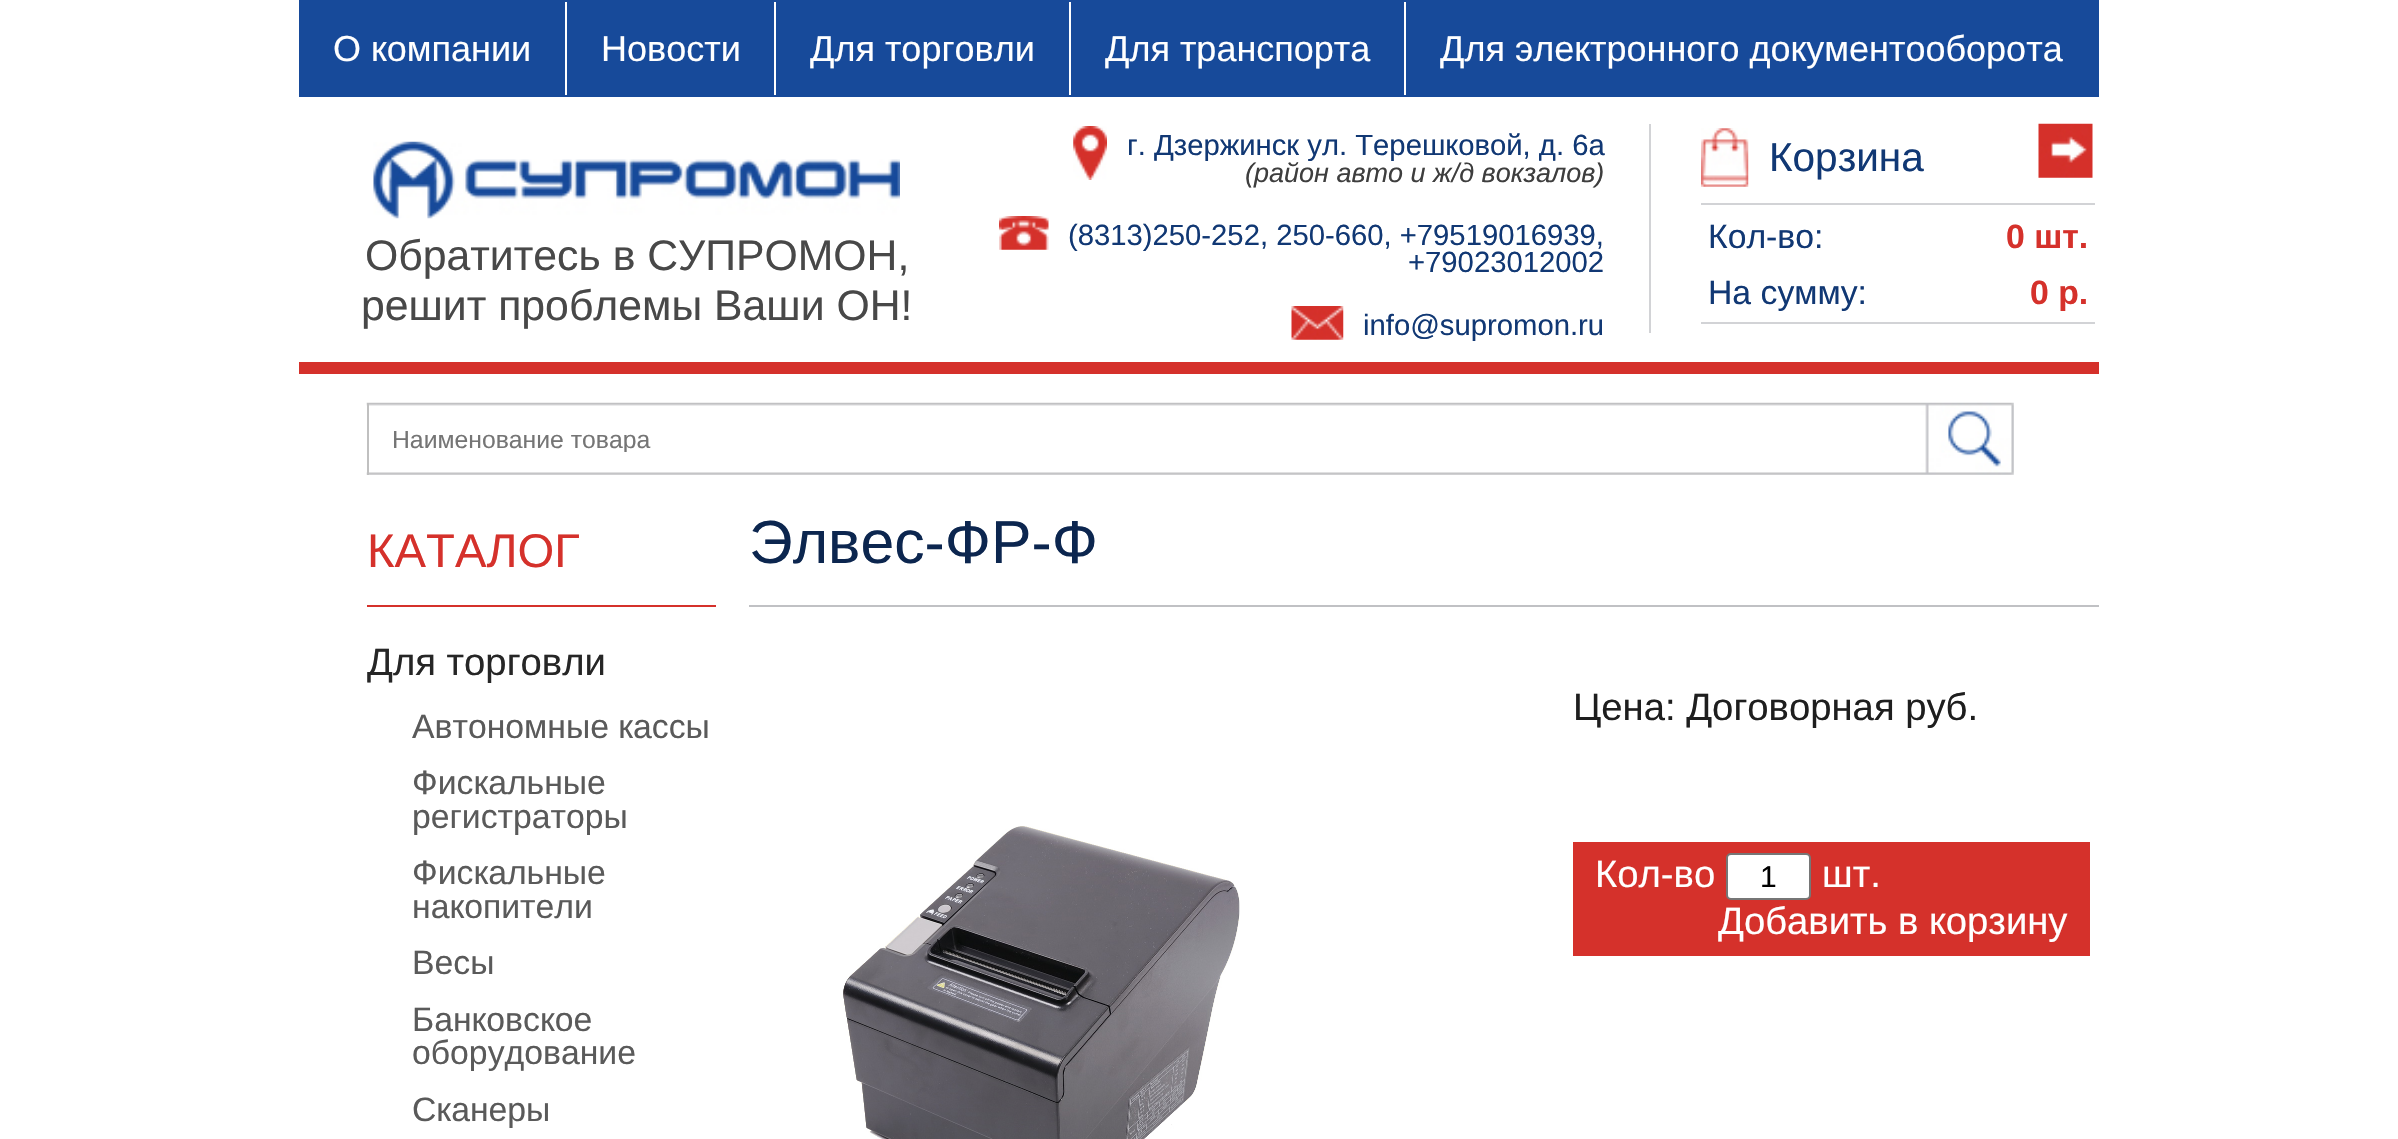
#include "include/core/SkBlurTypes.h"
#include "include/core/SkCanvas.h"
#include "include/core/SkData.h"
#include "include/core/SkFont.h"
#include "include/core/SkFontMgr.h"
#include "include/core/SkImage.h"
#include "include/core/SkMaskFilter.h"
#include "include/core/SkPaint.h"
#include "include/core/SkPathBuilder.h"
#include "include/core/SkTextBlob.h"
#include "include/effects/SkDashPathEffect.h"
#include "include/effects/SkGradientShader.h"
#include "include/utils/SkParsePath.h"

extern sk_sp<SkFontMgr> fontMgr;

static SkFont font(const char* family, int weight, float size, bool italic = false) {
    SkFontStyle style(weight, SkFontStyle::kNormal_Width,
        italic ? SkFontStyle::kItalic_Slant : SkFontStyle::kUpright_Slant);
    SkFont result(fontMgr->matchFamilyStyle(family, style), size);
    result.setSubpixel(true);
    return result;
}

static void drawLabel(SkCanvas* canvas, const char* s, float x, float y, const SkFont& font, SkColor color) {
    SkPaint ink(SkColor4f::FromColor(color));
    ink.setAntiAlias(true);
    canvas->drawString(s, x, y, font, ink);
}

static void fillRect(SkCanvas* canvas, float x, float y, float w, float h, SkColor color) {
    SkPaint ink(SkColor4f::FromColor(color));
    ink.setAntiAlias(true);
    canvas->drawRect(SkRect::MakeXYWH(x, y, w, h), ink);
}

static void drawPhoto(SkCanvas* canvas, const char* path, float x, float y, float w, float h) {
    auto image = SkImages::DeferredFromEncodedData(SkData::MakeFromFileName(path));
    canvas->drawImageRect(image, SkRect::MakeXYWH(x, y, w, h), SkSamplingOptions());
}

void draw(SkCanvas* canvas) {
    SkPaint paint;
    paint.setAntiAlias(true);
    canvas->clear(0xFFFFFFFF);
    fillRect(canvas, 299, 0, 1800, 97, 0xFF174A9A);
    SkFont font1 = font("Liberation Sans", 400, 36);
    drawLabel(canvas, "О компании", 333, 61, font1, 0xFFFFFFFF);
    fillRect(canvas, 565, 2, 2, 93, 0xFFFFFFFF);
    drawLabel(canvas, "Новости", 601, 61, font1, 0xFFFFFFFF);
    fillRect(canvas, 774, 2, 2, 93, 0xFFFFFFFF);
    drawLabel(canvas, "Для торговли", 810, 61, font1, 0xFFFFFFFF);
    fillRect(canvas, 1069, 2, 2, 93, 0xFFFFFFFF);
    drawLabel(canvas, "Для транспорта", 1105, 61, font1, 0xFFFFFFFF);
    fillRect(canvas, 1404, 2, 2, 93, 0xFFFFFFFF);
    drawLabel(canvas, "Для электронного документооборота", 1440, 61, font1, 0xFFFFFFFF);
    drawPhoto(canvas, "assets/img1.png", 373, 141, 527, 78);
    SkFont font2 = font("Liberation Sans", 400, 42.75f);
    drawLabel(canvas, "Обратитесь в СУПРОМОН,", 365, 270, font2, 0xFF484848);
    drawLabel(canvas, "решит проблемы Ваши ОН!", 361, 320, font2, 0xFF484848);
    drawPhoto(canvas, "assets/img2.png", 1073, 126, 34, 54);
    SkFont font3 = font("Liberation Sans", 400, 29.25f);
    drawLabel(canvas, "г. Дзержинск ул. Терешковой, д. 6а", 1127, 155, font3, 0xFF113874);
    SkFont font4 = font("Liberation Sans", 400, 27, true);
    drawLabel(canvas, "(район авто и ж/д вокзалов)", 1245, 182, font4, 0xFF3E3E3E);
    drawPhoto(canvas, "assets/img3.png", 999, 216, 50, 34);
    drawLabel(canvas, "(8313)250-252, 250-660, +79519016939,", 1068, 245, font3, 0xFF113874);
    drawLabel(canvas, "+79023012002", 1408, 272, font3, 0xFF113874);
    drawPhoto(canvas, "assets/img4.png", 1291, 306, 53, 34);
    drawLabel(canvas, "info@supromon.ru", 1363, 335, font3, 0xFF113874);
    fillRect(canvas, 1649, 124, 2, 209, 0xFFD2D3D6);
    drawPhoto(canvas, "assets/img5.png", 1701, 128, 48, 59);
    SkFont font5 = font("Liberation Sans", 400, 40.5f);
    drawLabel(canvas, "Корзина", 1769, 171, font5, 0xFF113874);
    drawPhoto(canvas, "assets/img6.png", 2038, 123, 55, 55);
    fillRect(canvas, 1701, 203, 394, 2, 0xFFD2D3D6);
    fillRect(canvas, 1701, 322, 394, 2, 0xFFD2D3D6);
    SkFont font6 = font("Liberation Sans", 400, 33.75f);
    drawLabel(canvas, "Кол-во:", 1708, 248, font6, 0xFF113874);
    SkFont font7 = font("Liberation Sans", 700, 33.75f);
    drawLabel(canvas, "0 шт.", 2006, 248, font7, 0xFFD5312B);
    drawLabel(canvas, "На сумму:", 1708, 304, font6, 0xFF113874);
    drawLabel(canvas, "0 р.", 2030, 304, font7, 0xFFD5312B);
    fillRect(canvas, 299, 362, 1800, 12, 0xFFD5312B);
    drawPhoto(canvas, "assets/img7.png", 366, 402, 1648, 73);
    fillRect(canvas, 367, 403, 2, 72, 0xFFC0C0C0);
    canvas->save();
    canvas->clipRect(SkRect::MakeXYWH(392, 425, 1512, 27));
    SkFont font8 = font("Liberation Sans", 400, 24.75f);
    drawLabel(canvas, "Наименование товара", 392, 448, font8, 0xFF757575);
    canvas->restore();
    fillRect(canvas, 367, 605, 349, 2, 0xFFD5312B);
    SkFont font9 = font("Liberation Sans", 400, 47.25f);
    drawLabel(canvas, "КАТАЛОГ", 367, 567, font9, 0xFFD5312B);
    SkFont font10 = font("Liberation Sans", 400, 38.25f);
    drawLabel(canvas, "Для торговли", 367, 675, font10, 0xFF262626);
    drawLabel(canvas, "Автономные кассы", 412, 738, font6, 0xFF5A5A5A);
    drawLabel(canvas, "Фискальные", 412, 794, font6, 0xFF5A5A5A);
    drawLabel(canvas, "регистраторы", 412, 828, font6, 0xFF5A5A5A);
    drawLabel(canvas, "Фискальные", 412, 884, font6, 0xFF5A5A5A);
    drawLabel(canvas, "накопители", 412, 918, font6, 0xFF5A5A5A);
    drawLabel(canvas, "Весы", 412, 974, font6, 0xFF5A5A5A);
    drawLabel(canvas, "Банковское", 412, 1031, font6, 0xFF5A5A5A);
    drawLabel(canvas, "оборудование", 412, 1064, font6, 0xFF5A5A5A);
    drawLabel(canvas, "Сканеры", 412, 1121, font6, 0xFF5A5A5A);
    fillRect(canvas, 749, 605, 1350, 2, 0xFFC0C1C4);
    SkFont font11 = font("Liberation Sans", 400, 60.75f);
    drawLabel(canvas, "Элвес-ФР-Ф", 749, 563, font11, 0xFF0C264F);
    drawPhoto(canvas, "assets/img8.png", 843, 826, 397, 313);
    drawLabel(canvas, "Цена: Договорная руб.", 1573, 720, font10, 0xFF1E1E1E);
    fillRect(canvas, 1573, 842, 517, 114, 0xFFD5312B);
    drawLabel(canvas, "Кол-во", 1595, 887, font10, 0xFFFFFFFF);
    paint.setColor(0xFFFFFFFF);
    canvas->drawRoundRect(SkRect::MakeXYWH(1727, 854, 83, 45), 4, 4, paint);
    paint.setStroke(true);
    paint.setStrokeWidth(2);
    paint.setColor(0xFF767676);
    canvas->drawRoundRect(SkRect::MakeXYWH(1727, 854, 83, 45), 4, 4, paint);
    SkFont font12 = font("Liberation Sans", 400, 30);
    drawLabel(canvas, "1", 1760, 887, font12, 0xFF000000);
    drawLabel(canvas, "шт.", 1822, 887, font10, 0xFFFFFFFF);
    drawLabel(canvas, "Добавить в корзину", 1718, 934, font10, 0xFFFFFFFF);
}
